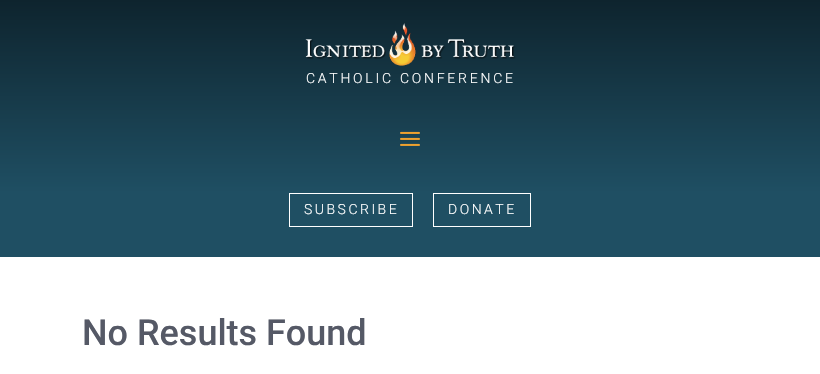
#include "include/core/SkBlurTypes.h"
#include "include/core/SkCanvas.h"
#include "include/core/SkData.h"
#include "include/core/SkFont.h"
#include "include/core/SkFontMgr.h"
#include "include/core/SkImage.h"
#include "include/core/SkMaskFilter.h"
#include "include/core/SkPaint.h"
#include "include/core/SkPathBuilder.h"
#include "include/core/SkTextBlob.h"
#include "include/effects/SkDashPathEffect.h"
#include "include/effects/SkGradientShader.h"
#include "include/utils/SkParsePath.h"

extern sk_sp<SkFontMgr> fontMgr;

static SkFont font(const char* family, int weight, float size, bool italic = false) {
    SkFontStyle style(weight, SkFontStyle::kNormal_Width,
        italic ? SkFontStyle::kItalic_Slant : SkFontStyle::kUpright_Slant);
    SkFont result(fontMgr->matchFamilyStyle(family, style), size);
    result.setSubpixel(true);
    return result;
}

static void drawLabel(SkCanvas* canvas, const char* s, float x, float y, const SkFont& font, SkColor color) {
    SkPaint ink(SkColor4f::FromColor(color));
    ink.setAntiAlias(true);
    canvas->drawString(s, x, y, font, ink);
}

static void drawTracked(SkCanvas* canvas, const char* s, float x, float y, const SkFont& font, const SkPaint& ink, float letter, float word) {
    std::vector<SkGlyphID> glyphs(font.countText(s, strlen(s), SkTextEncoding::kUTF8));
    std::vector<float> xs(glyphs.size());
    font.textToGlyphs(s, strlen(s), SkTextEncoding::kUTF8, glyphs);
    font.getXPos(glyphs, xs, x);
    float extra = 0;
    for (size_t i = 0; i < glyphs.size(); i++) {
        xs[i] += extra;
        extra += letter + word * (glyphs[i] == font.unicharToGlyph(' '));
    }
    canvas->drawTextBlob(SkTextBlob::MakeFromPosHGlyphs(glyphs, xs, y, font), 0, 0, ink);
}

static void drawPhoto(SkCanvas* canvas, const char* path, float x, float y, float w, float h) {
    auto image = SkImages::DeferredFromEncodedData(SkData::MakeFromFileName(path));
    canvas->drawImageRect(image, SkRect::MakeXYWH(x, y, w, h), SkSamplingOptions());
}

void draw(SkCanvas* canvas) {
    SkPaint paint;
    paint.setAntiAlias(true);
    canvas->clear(0xFFFFFFFF);
    {
        const SkColor colors[] = {0xFF0E242E, 0xFF1F4F63};
        const float stops[] = {0, 0.75f};
        const SkPoint ends[] = {{410, 0}, {410, 257}};
        paint.setShader(SkGradientShader::MakeLinear(ends, colors, stops, 2, SkTileMode::kClamp));
        paint.setAlpha(255);
    }
    canvas->drawRect(SkRect::MakeXYWH(0, 0, 820, 257), paint);
    drawPhoto(canvas, "assets/img1.png", 305, 23, 211, 43);
    SkFont font1 = font("Roboto", 300, 14);
    paint.setShader(nullptr);
    paint.setColor(0xFFFFFFFF);
    drawTracked(canvas, "CATHOLIC CONFERENCE", 306, 83, font1, paint, 2.75f, 0);
    drawPhoto(canvas, "assets/img2.png", 400, 131, 20, 15);
    paint.setStroke(true);
    paint.setStrokeWidth(1);
    canvas->drawRect(SkRect::MakeXYWH(289.5f, 193.5f, 123, 33), paint);
    paint.setStroke(false);
    drawTracked(canvas, "SUBSCRIBE", 304, 214, font1, paint, 2.5f, 0);
    paint.setStroke(true);
    canvas->drawRect(SkRect::MakeXYWH(433.5f, 193.5f, 97, 33), paint);
    paint.setStroke(false);
    drawTracked(canvas, "DONATE", 448, 214, font1, paint, 2.5f, 0);
    SkFont font2 = font("Roboto", 500, 36);
    drawLabel(canvas, "No Results Found", 82, 345, font2, 0xFF555966);
}
